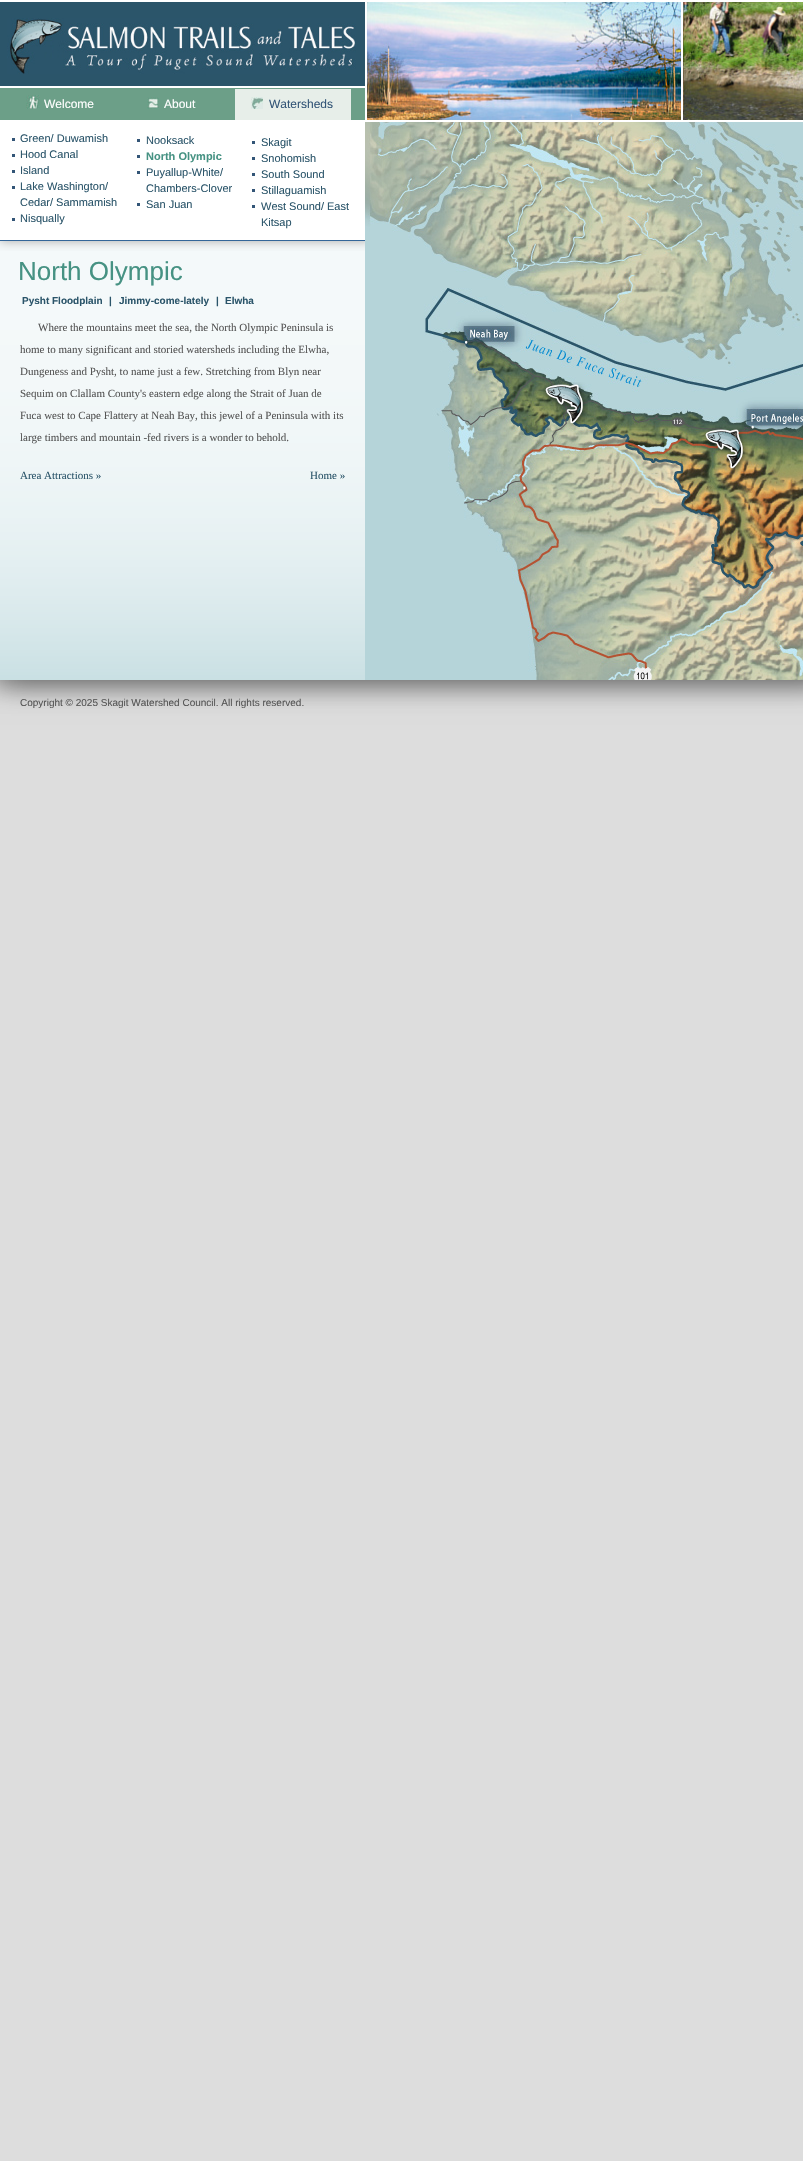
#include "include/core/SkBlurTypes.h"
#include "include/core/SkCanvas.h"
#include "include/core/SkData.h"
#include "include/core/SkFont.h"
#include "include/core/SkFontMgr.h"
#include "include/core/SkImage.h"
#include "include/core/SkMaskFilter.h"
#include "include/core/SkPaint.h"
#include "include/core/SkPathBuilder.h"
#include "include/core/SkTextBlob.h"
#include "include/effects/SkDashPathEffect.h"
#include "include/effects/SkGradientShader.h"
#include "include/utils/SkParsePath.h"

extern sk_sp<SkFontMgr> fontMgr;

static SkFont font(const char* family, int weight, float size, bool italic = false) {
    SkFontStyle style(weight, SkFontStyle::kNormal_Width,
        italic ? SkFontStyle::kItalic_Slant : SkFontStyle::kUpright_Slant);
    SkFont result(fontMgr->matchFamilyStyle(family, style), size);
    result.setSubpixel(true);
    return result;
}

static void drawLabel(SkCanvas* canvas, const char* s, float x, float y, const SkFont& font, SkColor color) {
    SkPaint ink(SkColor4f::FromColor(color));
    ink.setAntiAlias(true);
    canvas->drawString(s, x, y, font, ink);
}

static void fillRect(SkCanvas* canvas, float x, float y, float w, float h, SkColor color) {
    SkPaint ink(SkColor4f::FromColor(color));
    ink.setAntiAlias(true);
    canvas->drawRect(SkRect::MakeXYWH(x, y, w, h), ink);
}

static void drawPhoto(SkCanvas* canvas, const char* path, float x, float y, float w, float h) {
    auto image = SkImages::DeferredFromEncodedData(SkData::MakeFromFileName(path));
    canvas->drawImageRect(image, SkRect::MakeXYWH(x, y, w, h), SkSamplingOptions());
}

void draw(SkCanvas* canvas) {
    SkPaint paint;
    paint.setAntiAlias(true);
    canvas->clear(0xFFDDDDDD);
    paint.setColor(0xFFBBBBBB);
    paint.setMaskFilter(SkMaskFilter::MakeBlur(kNormal_SkBlurStyle, 10));
    canvas->drawRect(SkRect::MakeXYWH(-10, 110, 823, 580), paint);
    paint.setMaskFilter(nullptr);
    paint.setColor(0x99000000);
    paint.setMaskFilter(SkMaskFilter::MakeBlur(kNormal_SkBlurStyle, 15));
    canvas->drawRect(SkRect::MakeXYWH(0, 0, 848, 680), paint);
    paint.setMaskFilter(nullptr);
    fillRect(canvas, 0, 88, 365, 32, 0xFF6C9F88);
    fillRect(canvas, 235, 89, 116, 31, 0xFFE7EEE9);
    drawPhoto(canvas, "assets/img4.png", 251, 97, 12, 12);
    drawPhoto(canvas, "assets/img8.png", 0, 122, 803, 558);
    drawPhoto(canvas, "assets/img7.png", 0, 241, 365, 439);
    canvas->save();
    canvas->clipRect(SkRect::MakeXYWH(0, 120, 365, 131));
    paint.setColor(0xFFAAAAAA);
    paint.setMaskFilter(SkMaskFilter::MakeBlur(kNormal_SkBlurStyle, 5));
    canvas->drawRect(SkRect::MakeXYWH(0, 120, 370, 121), paint);
    paint.setMaskFilter(nullptr);
    canvas->restore();
    fillRect(canvas, 365, 0, 438, 122, 0xFFFFFFFF);
    drawPhoto(canvas, "assets/img1.png", 367, 2, 314, 118);
    drawPhoto(canvas, "assets/img2.png", 683, 2, 120, 118);
    fillRect(canvas, 0, 2, 365, 84, 0xFF2B556A);
    fillRect(canvas, 0, 0, 365, 2, 0xFFFFFFFF);
    drawPhoto(canvas, "assets/img3.png", 7, 18, 349, 56);
    fillRect(canvas, 0, 86, 365, 2, 0xFFFFFFFF);
    SkFont font1 = font("Liberation Sans", 400, 12);
    drawLabel(canvas, "Watersheds", 269, 108, font1, 0xFF335577);
    fillRect(canvas, 0, 120, 365, 120, 0xFFFFFFFF);
    fillRect(canvas, 0, 240, 365, 1, 0xFF336699);
    fillRect(canvas, 12, 138, 3, 3, 0xFF335577);
    SkFont font2 = font("Liberation Sans", 400, 11);
    drawLabel(canvas, "Green/ Duwamish", 20, 142, font2, 0xFF2B556A);
    fillRect(canvas, 12, 154, 3, 3, 0xFF335577);
    drawLabel(canvas, "Hood Canal", 20, 158, font2, 0xFF2B556A);
    fillRect(canvas, 12, 170, 3, 3, 0xFF335577);
    drawLabel(canvas, "Island", 20, 174, font2, 0xFF2B556A);
    fillRect(canvas, 12, 186, 3, 3, 0xFF335577);
    drawLabel(canvas, "Lake Washington/", 20, 190, font2, 0xFF2B556A);
    drawLabel(canvas, "Cedar/ Sammamish", 20, 206, font2, 0xFF2B556A);
    fillRect(canvas, 12, 218, 3, 3, 0xFF335577);
    drawLabel(canvas, "Nisqually", 20, 222, font2, 0xFF2B556A);
    fillRect(canvas, 137, 139, 3, 3, 0xFF335577);
    drawLabel(canvas, "Nooksack", 146, 144, font2, 0xFF2B556A);
    fillRect(canvas, 137, 155, 3, 3, 0xFF335577);
    SkFont font3 = font("Liberation Sans", 700, 11);
    drawLabel(canvas, "North Olympic", 146, 160, font3, 0xFF469283);
    fillRect(canvas, 137, 171, 3, 3, 0xFF335577);
    drawLabel(canvas, "Puyallup-White/", 146, 176, font2, 0xFF2B556A);
    drawLabel(canvas, "Chambers-Clover", 146, 192, font2, 0xFF2B556A);
    fillRect(canvas, 137, 203, 3, 3, 0xFF335577);
    drawLabel(canvas, "San Juan", 146, 208, font2, 0xFF2B556A);
    fillRect(canvas, 252, 141, 3, 3, 0xFF335577);
    drawLabel(canvas, "Skagit", 261, 146, font2, 0xFF2B556A);
    fillRect(canvas, 252, 157, 3, 3, 0xFF335577);
    drawLabel(canvas, "Snohomish", 261, 162, font2, 0xFF2B556A);
    fillRect(canvas, 252, 173, 3, 3, 0xFF335577);
    drawLabel(canvas, "South Sound", 261, 178, font2, 0xFF2B556A);
    fillRect(canvas, 252, 189, 3, 3, 0xFF335577);
    drawLabel(canvas, "Stillaguamish", 261, 194, font2, 0xFF2B556A);
    fillRect(canvas, 252, 205, 3, 3, 0xFF335577);
    drawLabel(canvas, "West Sound/ East", 261, 210, font2, 0xFF2B556A);
    drawLabel(canvas, "Kitsap", 261, 226, font2, 0xFF2B556A);
    drawPhoto(canvas, "assets/img5.png", 26, 95, 14, 14);
    drawLabel(canvas, "Welcome", 44, 108, font1, 0xFFFFFFFF);
    drawPhoto(canvas, "assets/img6.png", 147, 97, 12, 12);
    drawLabel(canvas, "About", 164, 108, font1, 0xFFFFFFFF);
    SkFont font4 = font("Liberation Sans", 400, 26);
    drawLabel(canvas, "North Olympic", 18, 280, font4, 0xFF469283);
    SkFont font5 = font("Liberation Sans", 700, 10);
    drawLabel(canvas, "Pysht Floodplain", 22, 304, font5, 0xFF2B556A);
    drawLabel(canvas, "|", 109, 304, font5, 0xFF2B556A);
    drawLabel(canvas, "Jimmy-come-lately", 119, 304, font5, 0xFF2B556A);
    drawLabel(canvas, "|", 216, 304, font5, 0xFF2B556A);
    drawLabel(canvas, "Elwha", 225, 304, font5, 0xFF2B556A);
    SkFont font6 = font("Liberation Serif", 400, 11);
    drawLabel(canvas, "Where the mountains meet the sea, the North Olympic Peninsula is", 38, 331, font6, 0xFF555555);
    drawLabel(canvas, "home to many significant and storied watersheds including the Elwha,", 20, 353, font6, 0xFF555555);
    drawLabel(canvas, "Dungeness and Pysht, to name just a few. Stretching from Blyn near", 20, 375, font6, 0xFF555555);
    drawLabel(canvas, "Sequim on Clallam County's eastern edge along the Strait of Juan de", 20, 397, font6, 0xFF555555);
    drawLabel(canvas, "Fuca west to Cape Flattery at Neah Bay, this jewel of a Peninsula with its", 20, 419, font6, 0xFF555555);
    drawLabel(canvas, "large timbers and mountain -fed rivers is a wonder to behold.", 20, 441, font6, 0xFF555555);
    drawLabel(canvas, "Area Attractions »", 20, 479, font6, 0xFF2B556A);
    drawLabel(canvas, "Home »", 310, 479, font6, 0xFF2B556A);
    drawPhoto(canvas, "assets/img9.png", 543, 382, 45, 47);
    drawPhoto(canvas, "assets/img10.png", 703, 427, 45, 47);
    SkFont font7 = font("Liberation Sans", 400, 10);
    drawLabel(canvas, "Copyright © 2025 Skagit Watershed Council. All rights reserved.", 20, 706, font7, 0xFF555555);
}
